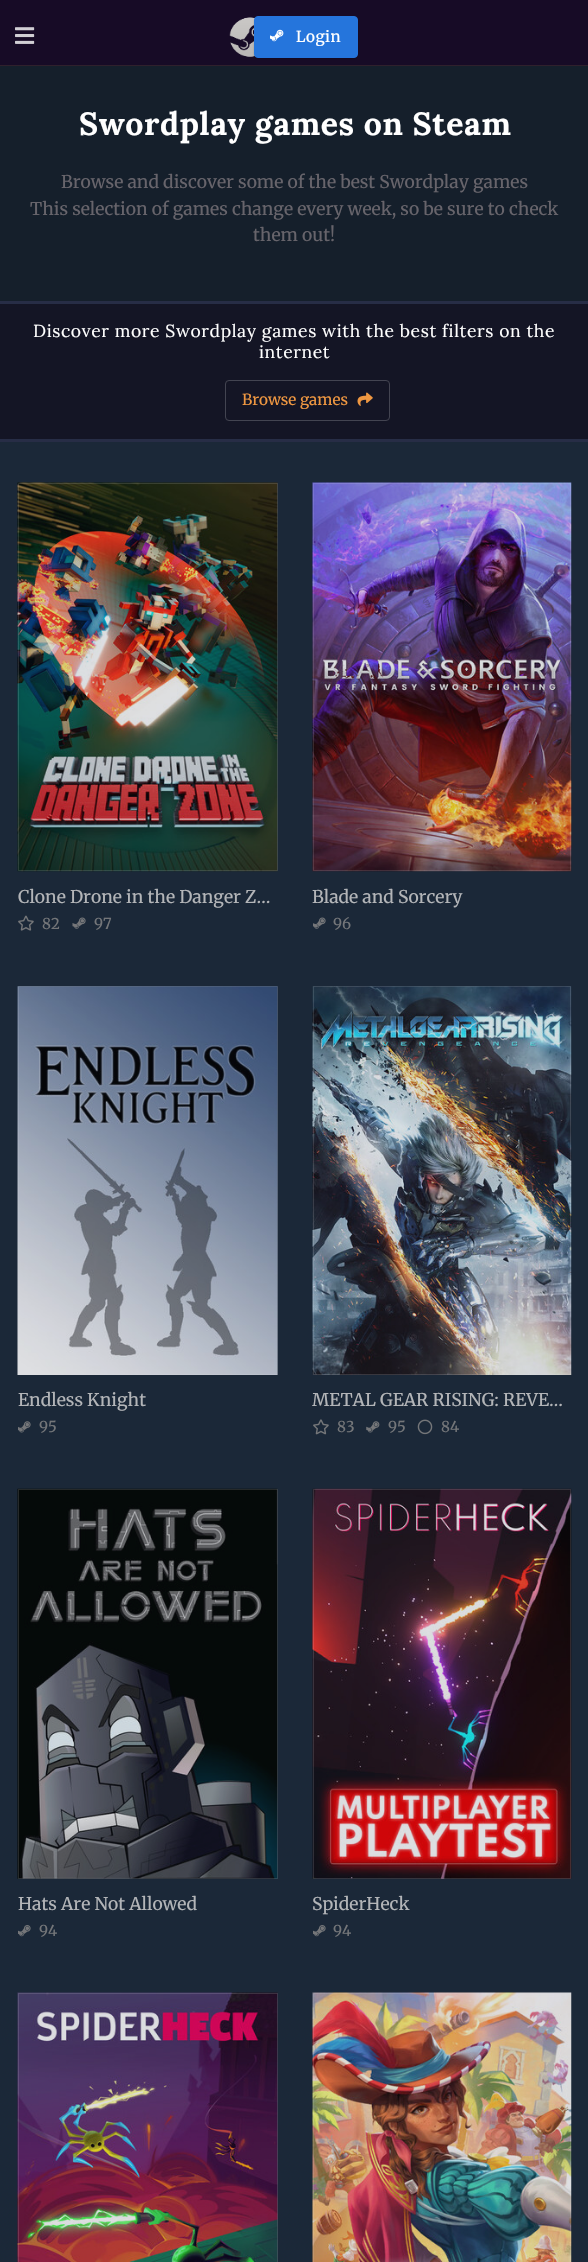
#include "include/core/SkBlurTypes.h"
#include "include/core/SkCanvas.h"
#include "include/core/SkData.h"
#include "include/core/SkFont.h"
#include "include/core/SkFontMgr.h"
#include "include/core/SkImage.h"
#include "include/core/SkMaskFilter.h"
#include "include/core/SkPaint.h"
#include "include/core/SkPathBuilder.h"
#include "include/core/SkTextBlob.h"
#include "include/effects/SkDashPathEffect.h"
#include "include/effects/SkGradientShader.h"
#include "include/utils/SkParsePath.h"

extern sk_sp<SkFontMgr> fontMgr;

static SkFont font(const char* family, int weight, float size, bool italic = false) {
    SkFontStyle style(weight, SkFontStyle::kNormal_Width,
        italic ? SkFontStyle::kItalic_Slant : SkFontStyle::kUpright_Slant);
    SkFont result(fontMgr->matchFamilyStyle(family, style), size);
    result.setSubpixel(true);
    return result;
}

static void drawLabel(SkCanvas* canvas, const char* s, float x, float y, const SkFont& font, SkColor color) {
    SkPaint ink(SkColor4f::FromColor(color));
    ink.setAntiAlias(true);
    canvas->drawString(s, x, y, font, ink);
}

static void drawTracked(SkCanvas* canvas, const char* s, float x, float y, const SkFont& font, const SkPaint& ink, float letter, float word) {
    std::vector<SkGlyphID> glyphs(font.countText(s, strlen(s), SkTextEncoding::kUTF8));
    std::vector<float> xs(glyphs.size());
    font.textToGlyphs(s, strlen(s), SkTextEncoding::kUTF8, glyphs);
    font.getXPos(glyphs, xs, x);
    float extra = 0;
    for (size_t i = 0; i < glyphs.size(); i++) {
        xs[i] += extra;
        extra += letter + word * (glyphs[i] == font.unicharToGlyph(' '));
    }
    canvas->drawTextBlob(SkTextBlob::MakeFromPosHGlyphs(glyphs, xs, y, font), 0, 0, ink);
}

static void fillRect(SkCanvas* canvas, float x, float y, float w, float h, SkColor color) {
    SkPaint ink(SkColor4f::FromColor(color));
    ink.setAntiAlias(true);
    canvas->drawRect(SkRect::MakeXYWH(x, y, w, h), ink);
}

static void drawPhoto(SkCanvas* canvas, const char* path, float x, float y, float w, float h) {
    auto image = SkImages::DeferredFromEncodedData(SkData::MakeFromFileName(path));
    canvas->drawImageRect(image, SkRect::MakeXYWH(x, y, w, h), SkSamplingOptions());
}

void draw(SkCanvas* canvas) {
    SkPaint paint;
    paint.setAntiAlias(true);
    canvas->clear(0xFFFFFFFF);
    fillRect(canvas, 0, 0, 588, 65, 0xFF170B26);
    fillRect(canvas, 0, 65, 588, 1, 0xFF2F202C);
    drawPhoto(canvas, "assets/img1.png", 15, 27, 20, 17);
    drawPhoto(canvas, "assets/img2.png", 229, 17, 26, 40);
    paint.setColor(0x33000000);
    paint.setMaskFilter(SkMaskFilter::MakeBlur(kNormal_SkBlurStyle, 1));
    canvas->drawRoundRect(SkRect::MakeXYWH(254, 18, 104, 41), 4, 4, paint);
    paint.setMaskFilter(nullptr);
    paint.setColor(0xFF2575DC);
    canvas->drawRoundRect(SkRect::MakeXYWH(254.5f, 16.5f, 103, 41), 3.5f, 3.5f, paint);
    paint.setStroke(true);
    paint.setStrokeWidth(1);
    canvas->drawRoundRect(SkRect::MakeXYWH(254.5f, 16.5f, 103, 41), 3.5f, 3.5f, paint);
    drawPhoto(canvas, "assets/img3.png", 270, 29, 14, 13);
    SkFont font1 = font("Merriweather", 300, 15.25f);
    paint.setStroke(false);
    paint.setColor(0xFFFFFFFF);
    drawTracked(canvas, "Login", 296, 42, font1, paint, 0.5f, 0);
    fillRect(canvas, 0, 66, 588, 235, 0xFF151F2B);
    fillRect(canvas, 0, 301, 588, 3, 0xFF272D46);
    SkFont font2 = font("Lora", 700, 32);
    drawTracked(canvas, "Swordplay games on Steam", 79, 135, font2, paint, 0.62f, 0);
    SkFont font3 = font("Merriweather", 300, 17.5f);
    drawLabel(canvas, "Browse and discover some of the best Swordplay games", 61, 188, font3, 0xFF67646B);
    drawLabel(canvas, "This selection of games change every week, so be sure to check", 30, 215, font3, 0xFF67646B);
    drawLabel(canvas, "them out!", 253, 241, font3, 0xFF67646B);
    fillRect(canvas, 0, 304, 588, 135, 0xFF141525);
    fillRect(canvas, 0, 439, 588, 3, 0xFF272D46);
    SkFont font4 = font("Lora", 400, 17.5f);
    drawTracked(canvas, "Discover more Swordplay games with the best filters on the", 33, 337, font4, paint, 0.62f, 0);
    drawTracked(canvas, "internet", 259, 358, font4, paint, 0.62f, 0);
    paint.setStroke(true);
    paint.setColor(0xFF434451);
    canvas->drawRoundRect(SkRect::MakeXYWH(225.5f, 380.5f, 164, 40), 3.5f, 3.5f, paint);
    drawLabel(canvas, "Browse games", 242, 405, font1, 0xFFEF9741);
    drawPhoto(canvas, "assets/img4.png", 357, 392, 16, 14);
    paint.setStroke(false);
    {
        const SkColor colors[] = {0xB3220F33, 0xFF1B2838};
        const float stops[] = {0.28f, 1};
        paint.setShader(SkGradientShader::MakeRadial({294, 3268}, 294, colors, stops, 2, SkTileMode::kClamp));
        paint.setAlpha(255);
    }
    canvas->drawRect(SkRect::MakeXYWH(0, 442, 588, 1820), paint);
    drawPhoto(canvas, "assets/img5.png", 17, 482, 261, 390);
    paint.setStroke(true);
    paint.setShader(nullptr);
    paint.setColor(0x26DDDFE1);
    canvas->drawRect(SkRect::MakeXYWH(18.5f, 483.5f, 259, 387), paint);
    drawLabel(canvas, "Clone Drone in the Danger Z…", 18, 903, font3, 0xFFB3B5B8);
    drawPhoto(canvas, "assets/img6.png", 18, 915, 16, 16);
    SkFont font5 = font("Merriweather", 300, 15);
    drawLabel(canvas, "82", 42, 929, font5, 0xFF747679);
    drawPhoto(canvas, "assets/img7.png", 72, 917, 14, 12);
    drawLabel(canvas, "97", 94, 929, font5, 0xFF747679);
    drawPhoto(canvas, "assets/img8.png", 312, 482, 260, 390);
    canvas->drawRect(SkRect::MakeXYWH(313.5f, 483.5f, 257, 387), paint);
    drawLabel(canvas, "Blade and Sorcery", 312, 903, font3, 0xFFB3B5B8);
    drawPhoto(canvas, "assets/img9.png", 313, 917, 13, 12);
    drawLabel(canvas, "96", 333, 929, font5, 0xFF747679);
    drawPhoto(canvas, "assets/img10.png", 17, 986, 261, 389);
    canvas->drawRect(SkRect::MakeXYWH(18.5f, 986.5f, 259, 388), paint);
    drawLabel(canvas, "Endless Knight", 18, 1406, font3, 0xFFB3B5B8);
    drawPhoto(canvas, "assets/img11.png", 18, 1421, 13, 12);
    drawLabel(canvas, "95", 39, 1432, font5, 0xFF747679);
    drawPhoto(canvas, "assets/img12.png", 312, 986, 260, 389);
    canvas->drawRect(SkRect::MakeXYWH(313.5f, 986.5f, 257, 388), paint);
    drawLabel(canvas, "METAL GEAR RISING: REVE…", 312, 1406, font3, 0xFFB3B5B8);
    drawPhoto(canvas, "assets/img13.png", 313, 1419, 16, 16);
    drawLabel(canvas, "83", 337, 1432, font5, 0xFF747679);
    drawPhoto(canvas, "assets/img14.png", 366, 1421, 14, 12);
    drawLabel(canvas, "95", 388, 1432, font5, 0xFF747679);
    drawPhoto(canvas, "assets/img15.png", 417, 1419, 16, 16);
    drawLabel(canvas, "84", 441, 1432, font5, 0xFF747679);
    drawPhoto(canvas, "assets/img16.png", 17, 1488, 261, 391);
    canvas->drawRect(SkRect::MakeXYWH(18.5f, 1489.5f, 259, 389), paint);
    drawLabel(canvas, "Hats Are Not Allowed", 18, 1910, font3, 0xFFB3B5B8);
    drawPhoto(canvas, "assets/img17.png", 18, 1925, 13, 12);
    drawLabel(canvas, "94", 39, 1936, font5, 0xFF747679);
    drawPhoto(canvas, "assets/img18.png", 312, 1488, 260, 391);
    canvas->drawRect(SkRect::MakeXYWH(313.5f, 1489.5f, 257, 389), paint);
    drawLabel(canvas, "SpiderHeck", 312, 1910, font3, 0xFFB3B5B8);
    drawPhoto(canvas, "assets/img17.png", 313, 1925, 13, 12);
    drawLabel(canvas, "94", 333, 1936, font5, 0xFF747679);
    drawPhoto(canvas, "assets/img19.png", 17, 1992, 261, 270);
    canvas->drawRect(SkRect::MakeXYWH(18.5f, 1993.5f, 259, 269), paint);
    drawPhoto(canvas, "assets/img20.png", 312, 1992, 260, 270);
    canvas->drawRect(SkRect::MakeXYWH(313.5f, 1993.5f, 257, 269), paint);
}
